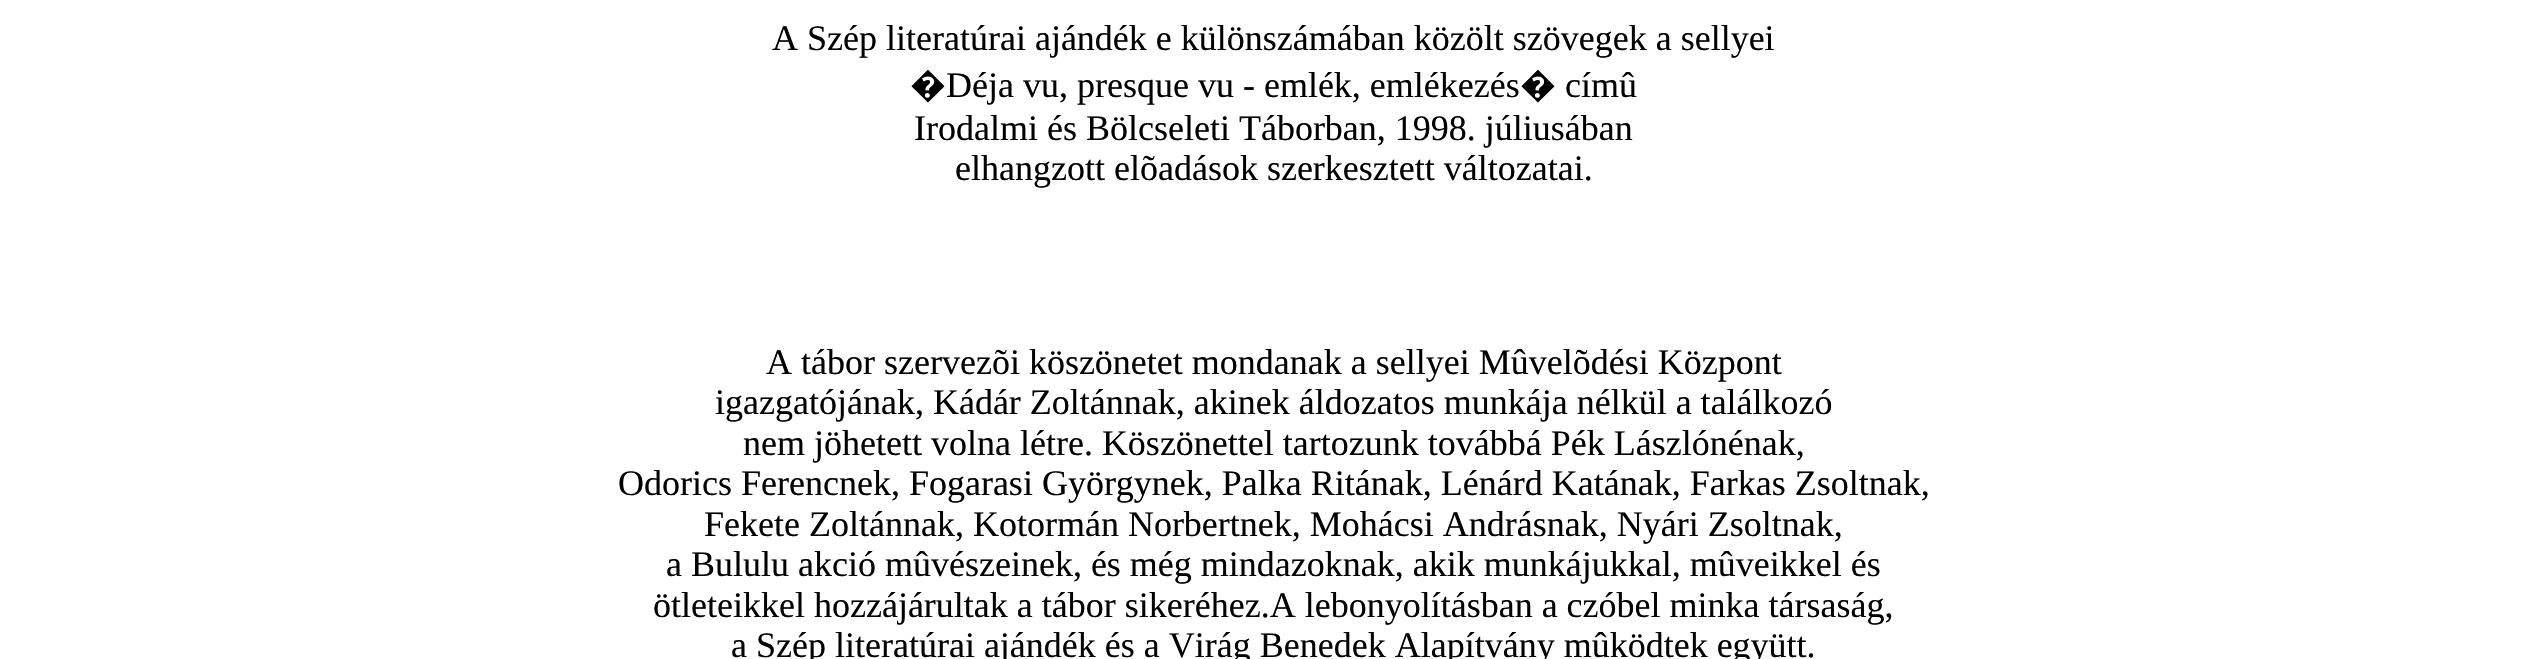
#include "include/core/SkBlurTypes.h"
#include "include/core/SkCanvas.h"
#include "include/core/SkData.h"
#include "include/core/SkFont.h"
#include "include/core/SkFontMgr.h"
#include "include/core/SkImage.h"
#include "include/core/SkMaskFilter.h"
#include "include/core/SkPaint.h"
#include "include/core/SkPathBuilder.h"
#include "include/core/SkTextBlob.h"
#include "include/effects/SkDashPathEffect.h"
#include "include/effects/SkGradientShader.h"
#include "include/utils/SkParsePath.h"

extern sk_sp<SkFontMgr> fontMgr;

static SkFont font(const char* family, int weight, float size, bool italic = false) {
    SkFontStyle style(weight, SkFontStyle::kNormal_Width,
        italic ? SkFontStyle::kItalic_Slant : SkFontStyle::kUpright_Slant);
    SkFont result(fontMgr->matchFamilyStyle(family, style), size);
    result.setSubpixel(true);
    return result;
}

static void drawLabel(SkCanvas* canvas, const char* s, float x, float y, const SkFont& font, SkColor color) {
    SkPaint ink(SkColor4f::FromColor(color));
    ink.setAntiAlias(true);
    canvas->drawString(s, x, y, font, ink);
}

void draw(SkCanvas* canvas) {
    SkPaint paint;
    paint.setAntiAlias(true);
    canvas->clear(0xFFFFFFFF);
    SkFont font1 = font("Liberation Serif", 400, 36);
    drawLabel(canvas, "A Szép literatúrai ajándék e különszámában közölt szövegek a sellyei", 772, 50, font1, 0xFF000000);
    SkFont font2 = font("Noto Sans", 400, 36);
    drawLabel(canvas, "�", 910, 97, font2, 0xFF000000);
    drawLabel(canvas, "Déja vu, presque vu - emlék, emlékezés", 946, 97, font1, 0xFF000000);
    drawLabel(canvas, "�", 1520, 97, font2, 0xFF000000);
    drawLabel(canvas, "címû", 1565, 97, font1, 0xFF000000);
    drawLabel(canvas, "Irodalmi és Bölcseleti Táborban, 1998. júliusában", 914, 140, font1, 0xFF000000);
    drawLabel(canvas, "elhangzott elõadások szerkesztett változatai.", 955, 180, font1, 0xFF000000);
    drawLabel(canvas, "A tábor szervezõi köszönetet mondanak a sellyei Mûvelõdési Központ", 766, 374, font1, 0xFF000000);
    drawLabel(canvas, "igazgatójának, Kádár Zoltánnak, akinek áldozatos munkája nélkül a találkozó", 715, 414, font1, 0xFF000000);
    drawLabel(canvas, "nem jöhetett volna létre. Köszönettel tartozunk továbbá Pék Lászlónénak,", 743, 455, font1, 0xFF000000);
    drawLabel(canvas, "Odorics Ferencnek, Fogarasi Györgynek, Palka Ritának, Lénárd Katának, Farkas Zsoltnak,", 618, 495, font1, 0xFF000000);
    drawLabel(canvas, "Fekete Zoltánnak, Kotormán Norbertnek, Mohácsi Andrásnak, Nyári Zsoltnak,", 704, 536, font1, 0xFF000000);
    drawLabel(canvas, "a Bululu akció mûvészeinek, és még mindazoknak, akik munkájukkal, mûveikkel és", 666, 576, font1, 0xFF000000);
    drawLabel(canvas, "ötleteikkel hozzájárultak a tábor sikeréhez.A lebonyolításban a czóbel minka társaság,", 653, 617, font1, 0xFF000000);
    drawLabel(canvas, "a Szép literatúrai ajándék és a Virág Benedek Alapítvány mûködtek együtt.", 731, 657, font1, 0xFF000000);
}
